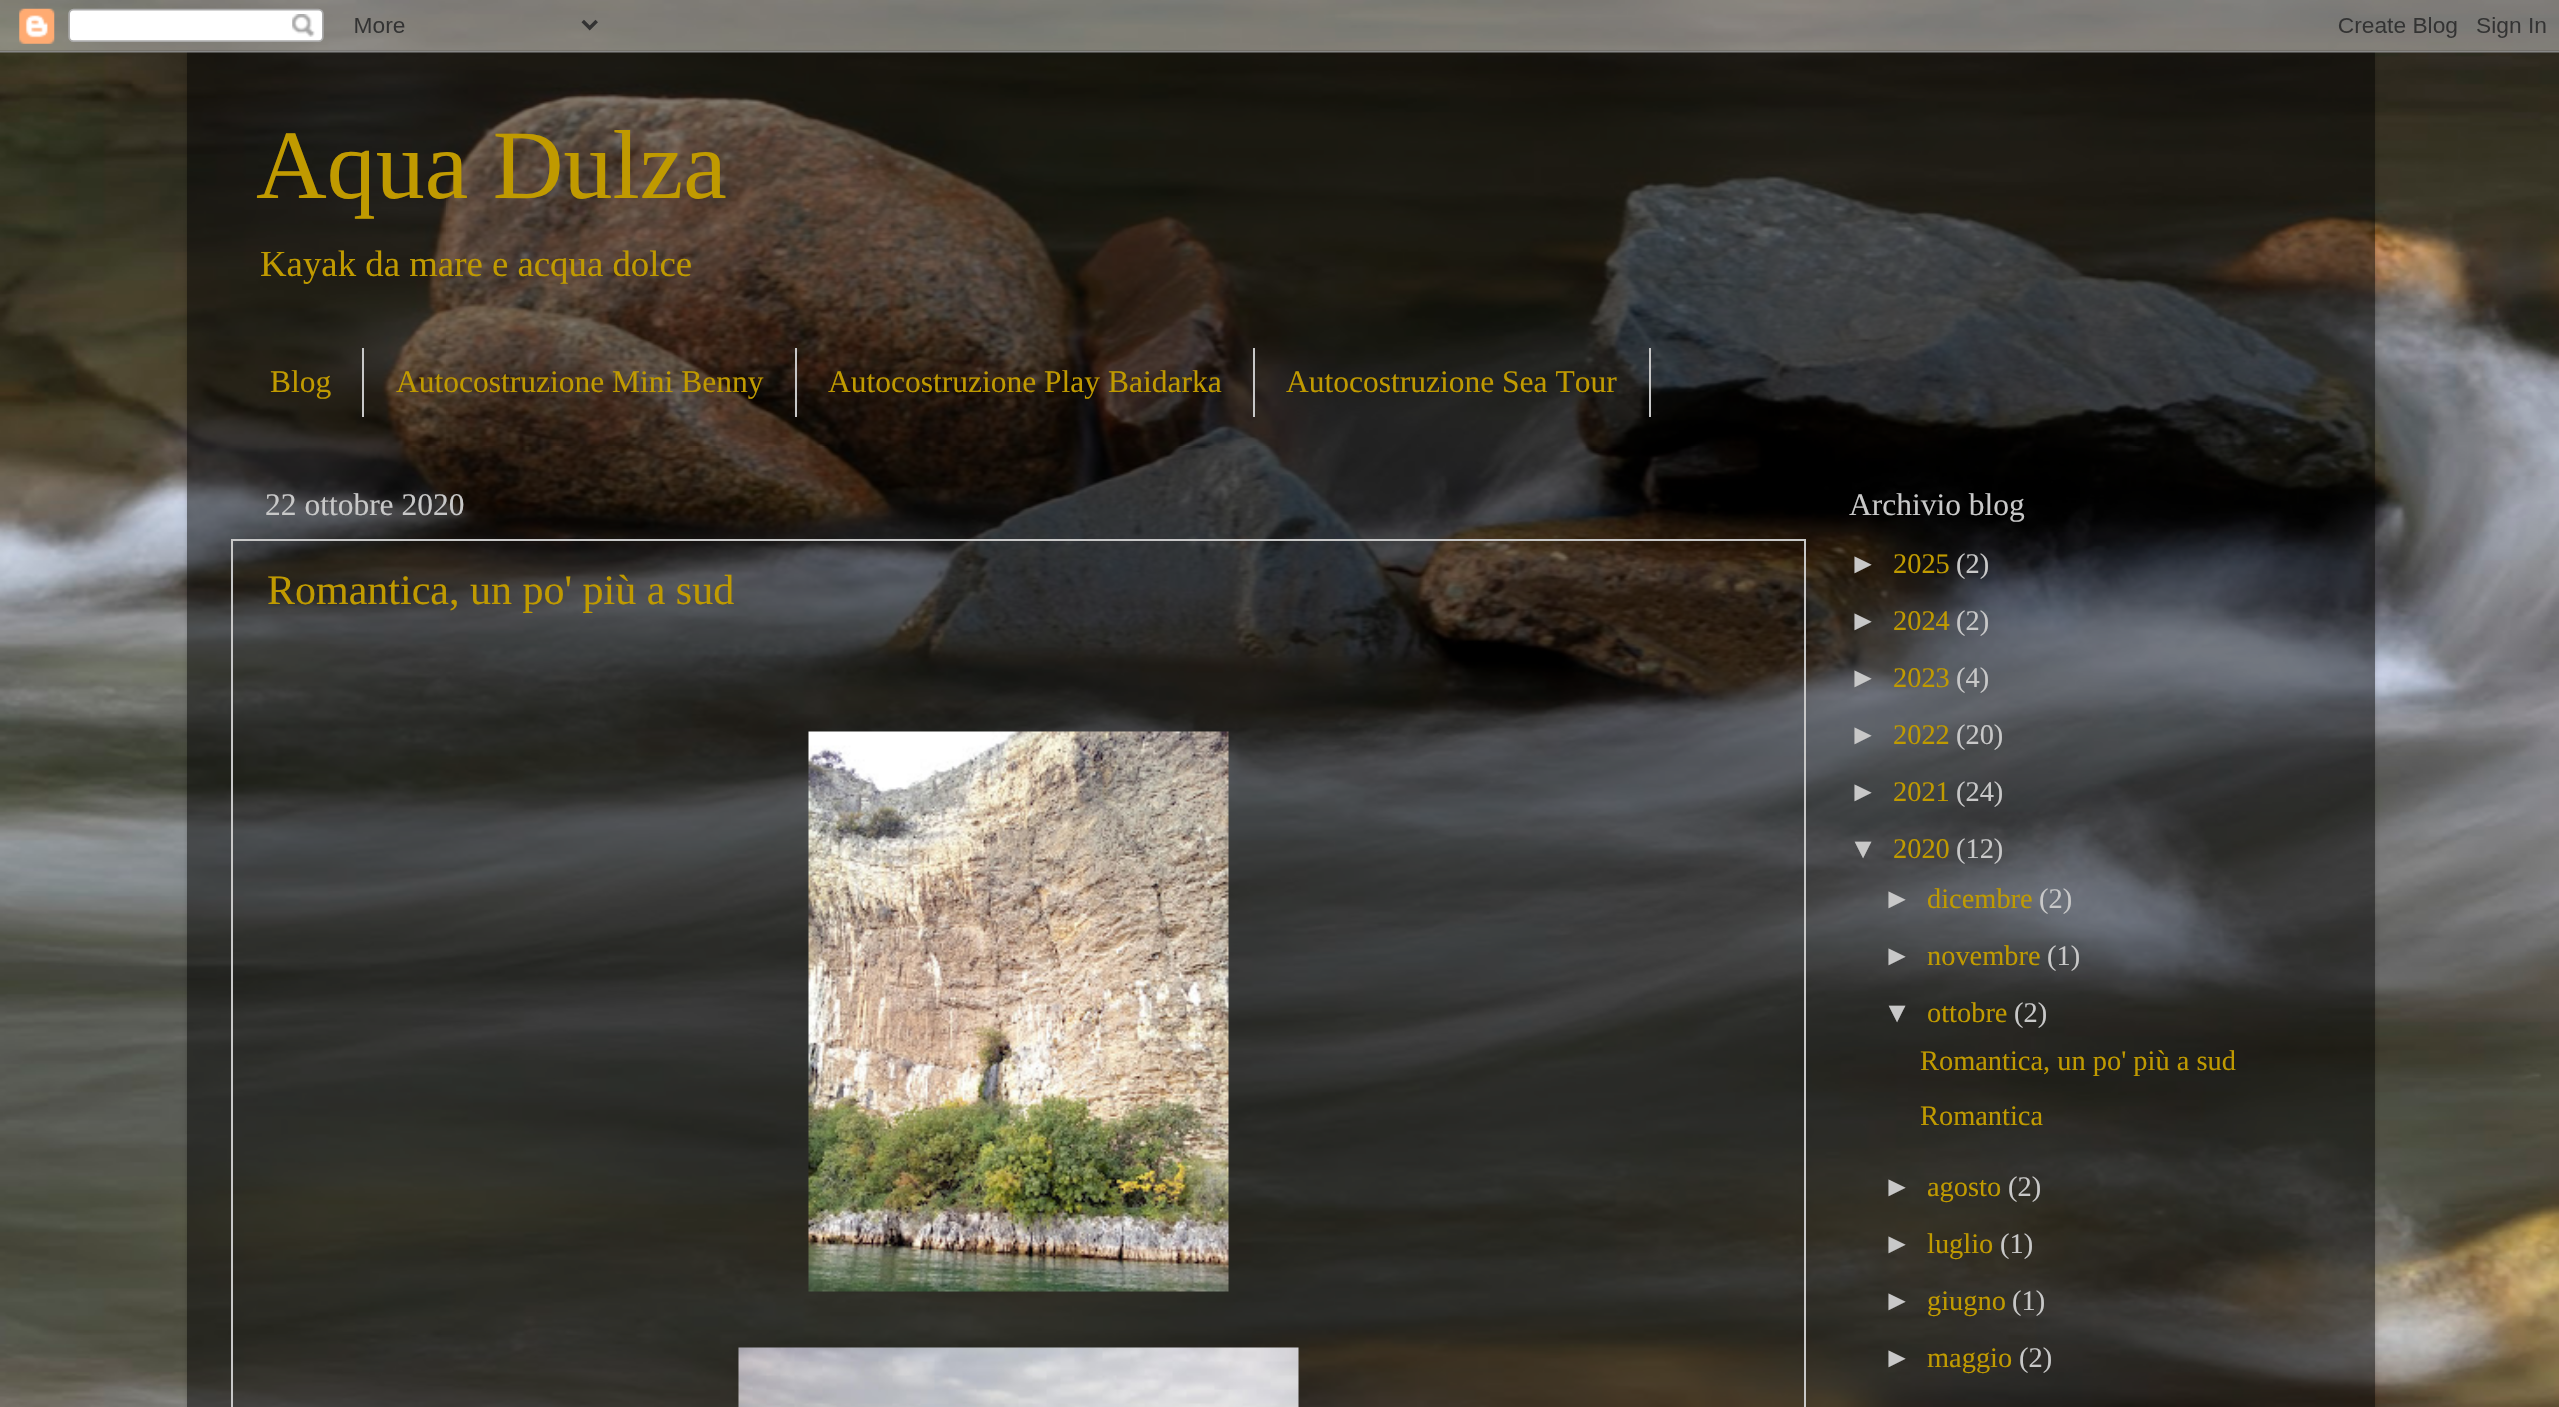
#include "include/core/SkBlurTypes.h"
#include "include/core/SkCanvas.h"
#include "include/core/SkData.h"
#include "include/core/SkFont.h"
#include "include/core/SkFontMgr.h"
#include "include/core/SkImage.h"
#include "include/core/SkMaskFilter.h"
#include "include/core/SkPaint.h"
#include "include/core/SkPathBuilder.h"
#include "include/core/SkTextBlob.h"
#include "include/effects/SkDashPathEffect.h"
#include "include/effects/SkGradientShader.h"
#include "include/utils/SkParsePath.h"

extern sk_sp<SkFontMgr> fontMgr;

static SkFont font(const char* family, int weight, float size, bool italic = false) {
    SkFontStyle style(weight, SkFontStyle::kNormal_Width,
        italic ? SkFontStyle::kItalic_Slant : SkFontStyle::kUpright_Slant);
    SkFont result(fontMgr->matchFamilyStyle(family, style), size);
    result.setSubpixel(true);
    return result;
}

static void drawLabel(SkCanvas* canvas, const char* s, float x, float y, const SkFont& font, SkColor color) {
    SkPaint ink(SkColor4f::FromColor(color));
    ink.setAntiAlias(true);
    canvas->drawString(s, x, y, font, ink);
}

static void fillRect(SkCanvas* canvas, float x, float y, float w, float h, SkColor color) {
    SkPaint ink(SkColor4f::FromColor(color));
    ink.setAntiAlias(true);
    canvas->drawRect(SkRect::MakeXYWH(x, y, w, h), ink);
}

static void drawPhoto(SkCanvas* canvas, const char* path, float x, float y, float w, float h) {
    auto image = SkImages::DeferredFromEncodedData(SkData::MakeFromFileName(path));
    canvas->drawImageRect(image, SkRect::MakeXYWH(x, y, w, h), SkSamplingOptions());
}

static SkPath parsePath(const char* data, bool evenOdd = false) {
    SkPath result = *SkParsePath::FromSVGString(data);
    if (evenOdd) result.setFillType(SkPathFillType::kEvenOdd);
    return result;
}

void draw(SkCanvas* canvas) {
    SkPaint paint;
    paint.setAntiAlias(true);
    canvas->clear(0xFFFFFFFF);
    drawPhoto(canvas, "assets/img1.png", 0, 0, 2559, 1407);
    canvas->save();
    canvas->clipPath(parsePath("M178 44H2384V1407H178ZM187 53H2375V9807H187Z", true), true);
    paint.setColor(0x26000000);
    paint.setMaskFilter(SkMaskFilter::MakeBlur(kNormal_SkBlurStyle, 2.5f));
    canvas->drawRect(SkRect::MakeXYWH(187, 53, 2188, 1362), paint);
    paint.setMaskFilter(nullptr);
    canvas->restore();
    fillRect(canvas, 187, 52, 2188, 1355, 0x80000000);
    drawPhoto(canvas, "assets/img2.png", 0, 0, 2559, 53);
    SkFont font1 = font("Liberation Serif", 400, 98);
    drawLabel(canvas, "Aqua Dulza", 256, 198, font1, 0xFFC09A00);
    SkFont font2 = font("Liberation Serif", 400, 36.8f);
    drawLabel(canvas, "Kayak da mare e acqua dolce", 260, 276, font2, 0xFFC09A00);
    fillRect(canvas, 362, 348, 2, 69, 0xFFC8C8C8);
    SkFont font3 = font("Liberation Serif", 400, 31.5f);
    drawLabel(canvas, "Blog", 270, 392, font3, 0xFFC09A00);
    fillRect(canvas, 795, 348, 2, 69, 0xFFC8C8C8);
    drawLabel(canvas, "Autocostruzione Mini Benny", 396, 392, font3, 0xFFC09A00);
    fillRect(canvas, 1253, 348, 2, 69, 0xFFC8C8C8);
    drawLabel(canvas, "Autocostruzione Play Baidarka", 828, 392, font3, 0xFFC09A00);
    fillRect(canvas, 1649, 348, 2, 69, 0xFFC8C8C8);
    drawLabel(canvas, "Autocostruzione Sea Tour", 1286, 392, font3, 0xFFC09A00);
    drawLabel(canvas, "22 ottobre 2020", 265, 515, font3, 0xFFC8C8C8);
    paint.setStroke(true);
    paint.setStrokeWidth(2);
    paint.setColor(0xFFC8C8C8);
    canvas->drawRect(SkRect::MakeXYWH(232, 540, 1573, 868), paint);
    SkFont font4 = font("Liberation Serif", 400, 42);
    drawLabel(canvas, "Romantica, un po' più a sud", 267, 604, font4, 0xFFC09A00);
    drawPhoto(canvas, "assets/img3.png", 808, 731, 421, 561);
    drawPhoto(canvas, "assets/img4.png", 738, 1347, 561, 60);
    drawLabel(canvas, "Archivio blog", 1849, 515, font3, 0xFFC8C8C8);
    SkFont font5 = font("Liberation Sans", 400, 28.4f);
    drawLabel(canvas, "►", 1849, 573, font5, 0xFFC8C8C8);
    SkFont font6 = font("Liberation Serif", 400, 28.4f);
    drawLabel(canvas, "2025", 1893, 573, font6, 0xFFC09A00);
    drawLabel(canvas, "(2)", 1956, 573, font6, 0xFFC8C8C8);
    drawLabel(canvas, "►", 1849, 630, font5, 0xFFC8C8C8);
    drawLabel(canvas, "2024", 1893, 630, font6, 0xFFC09A00);
    drawLabel(canvas, "(2)", 1956, 630, font6, 0xFFC8C8C8);
    drawLabel(canvas, "►", 1849, 687, font5, 0xFFC8C8C8);
    drawLabel(canvas, "2023", 1893, 687, font6, 0xFFC09A00);
    drawLabel(canvas, "(4)", 1956, 687, font6, 0xFFC8C8C8);
    drawLabel(canvas, "►", 1849, 744, font5, 0xFFC8C8C8);
    drawLabel(canvas, "2022", 1893, 744, font6, 0xFFC09A00);
    drawLabel(canvas, "(20)", 1956, 744, font6, 0xFFC8C8C8);
    drawLabel(canvas, "►", 1849, 801, font5, 0xFFC8C8C8);
    drawLabel(canvas, "2021", 1893, 801, font6, 0xFFC09A00);
    drawLabel(canvas, "(24)", 1956, 801, font6, 0xFFC8C8C8);
    drawLabel(canvas, "▼", 1849, 858, font5, 0xFFC8C8C8);
    drawLabel(canvas, "2020", 1893, 858, font6, 0xFFC09A00);
    drawLabel(canvas, "(12)", 1956, 858, font6, 0xFFC8C8C8);
    drawLabel(canvas, "►", 1883, 908, font5, 0xFFC8C8C8);
    drawLabel(canvas, "dicembre", 1927, 908, font6, 0xFFC09A00);
    drawLabel(canvas, "(2)", 2039, 908, font6, 0xFFC8C8C8);
    drawLabel(canvas, "►", 1883, 965, font5, 0xFFC8C8C8);
    drawLabel(canvas, "novembre", 1927, 965, font6, 0xFFC09A00);
    drawLabel(canvas, "(1)", 2047, 965, font6, 0xFFC8C8C8);
    drawLabel(canvas, "▼", 1883, 1022, font5, 0xFFC8C8C8);
    drawLabel(canvas, "ottobre", 1927, 1022, font6, 0xFFC09A00);
    drawLabel(canvas, "(2)", 2014, 1022, font6, 0xFFC8C8C8);
    drawLabel(canvas, "Romantica, un po' più a sud", 1920, 1070, font6, 0xFFC09A00);
    drawLabel(canvas, "Romantica", 1920, 1125, font6, 0xFFC09A00);
    drawLabel(canvas, "►", 1883, 1196, font5, 0xFFC8C8C8);
    drawLabel(canvas, "agosto", 1927, 1196, font6, 0xFFC09A00);
    drawLabel(canvas, "(2)", 2008, 1196, font6, 0xFFC8C8C8);
    drawLabel(canvas, "►", 1883, 1253, font5, 0xFFC8C8C8);
    drawLabel(canvas, "luglio", 1927, 1253, font6, 0xFFC09A00);
    drawLabel(canvas, "(1)", 2000, 1253, font6, 0xFFC8C8C8);
    drawLabel(canvas, "►", 1883, 1310, font5, 0xFFC8C8C8);
    drawLabel(canvas, "giugno", 1927, 1310, font6, 0xFFC09A00);
    drawLabel(canvas, "(1)", 2012, 1310, font6, 0xFFC8C8C8);
    drawLabel(canvas, "►", 1883, 1367, font5, 0xFFC8C8C8);
    drawLabel(canvas, "maggio", 1927, 1367, font6, 0xFFC09A00);
    drawLabel(canvas, "(2)", 2019, 1367, font6, 0xFFC8C8C8);
}
